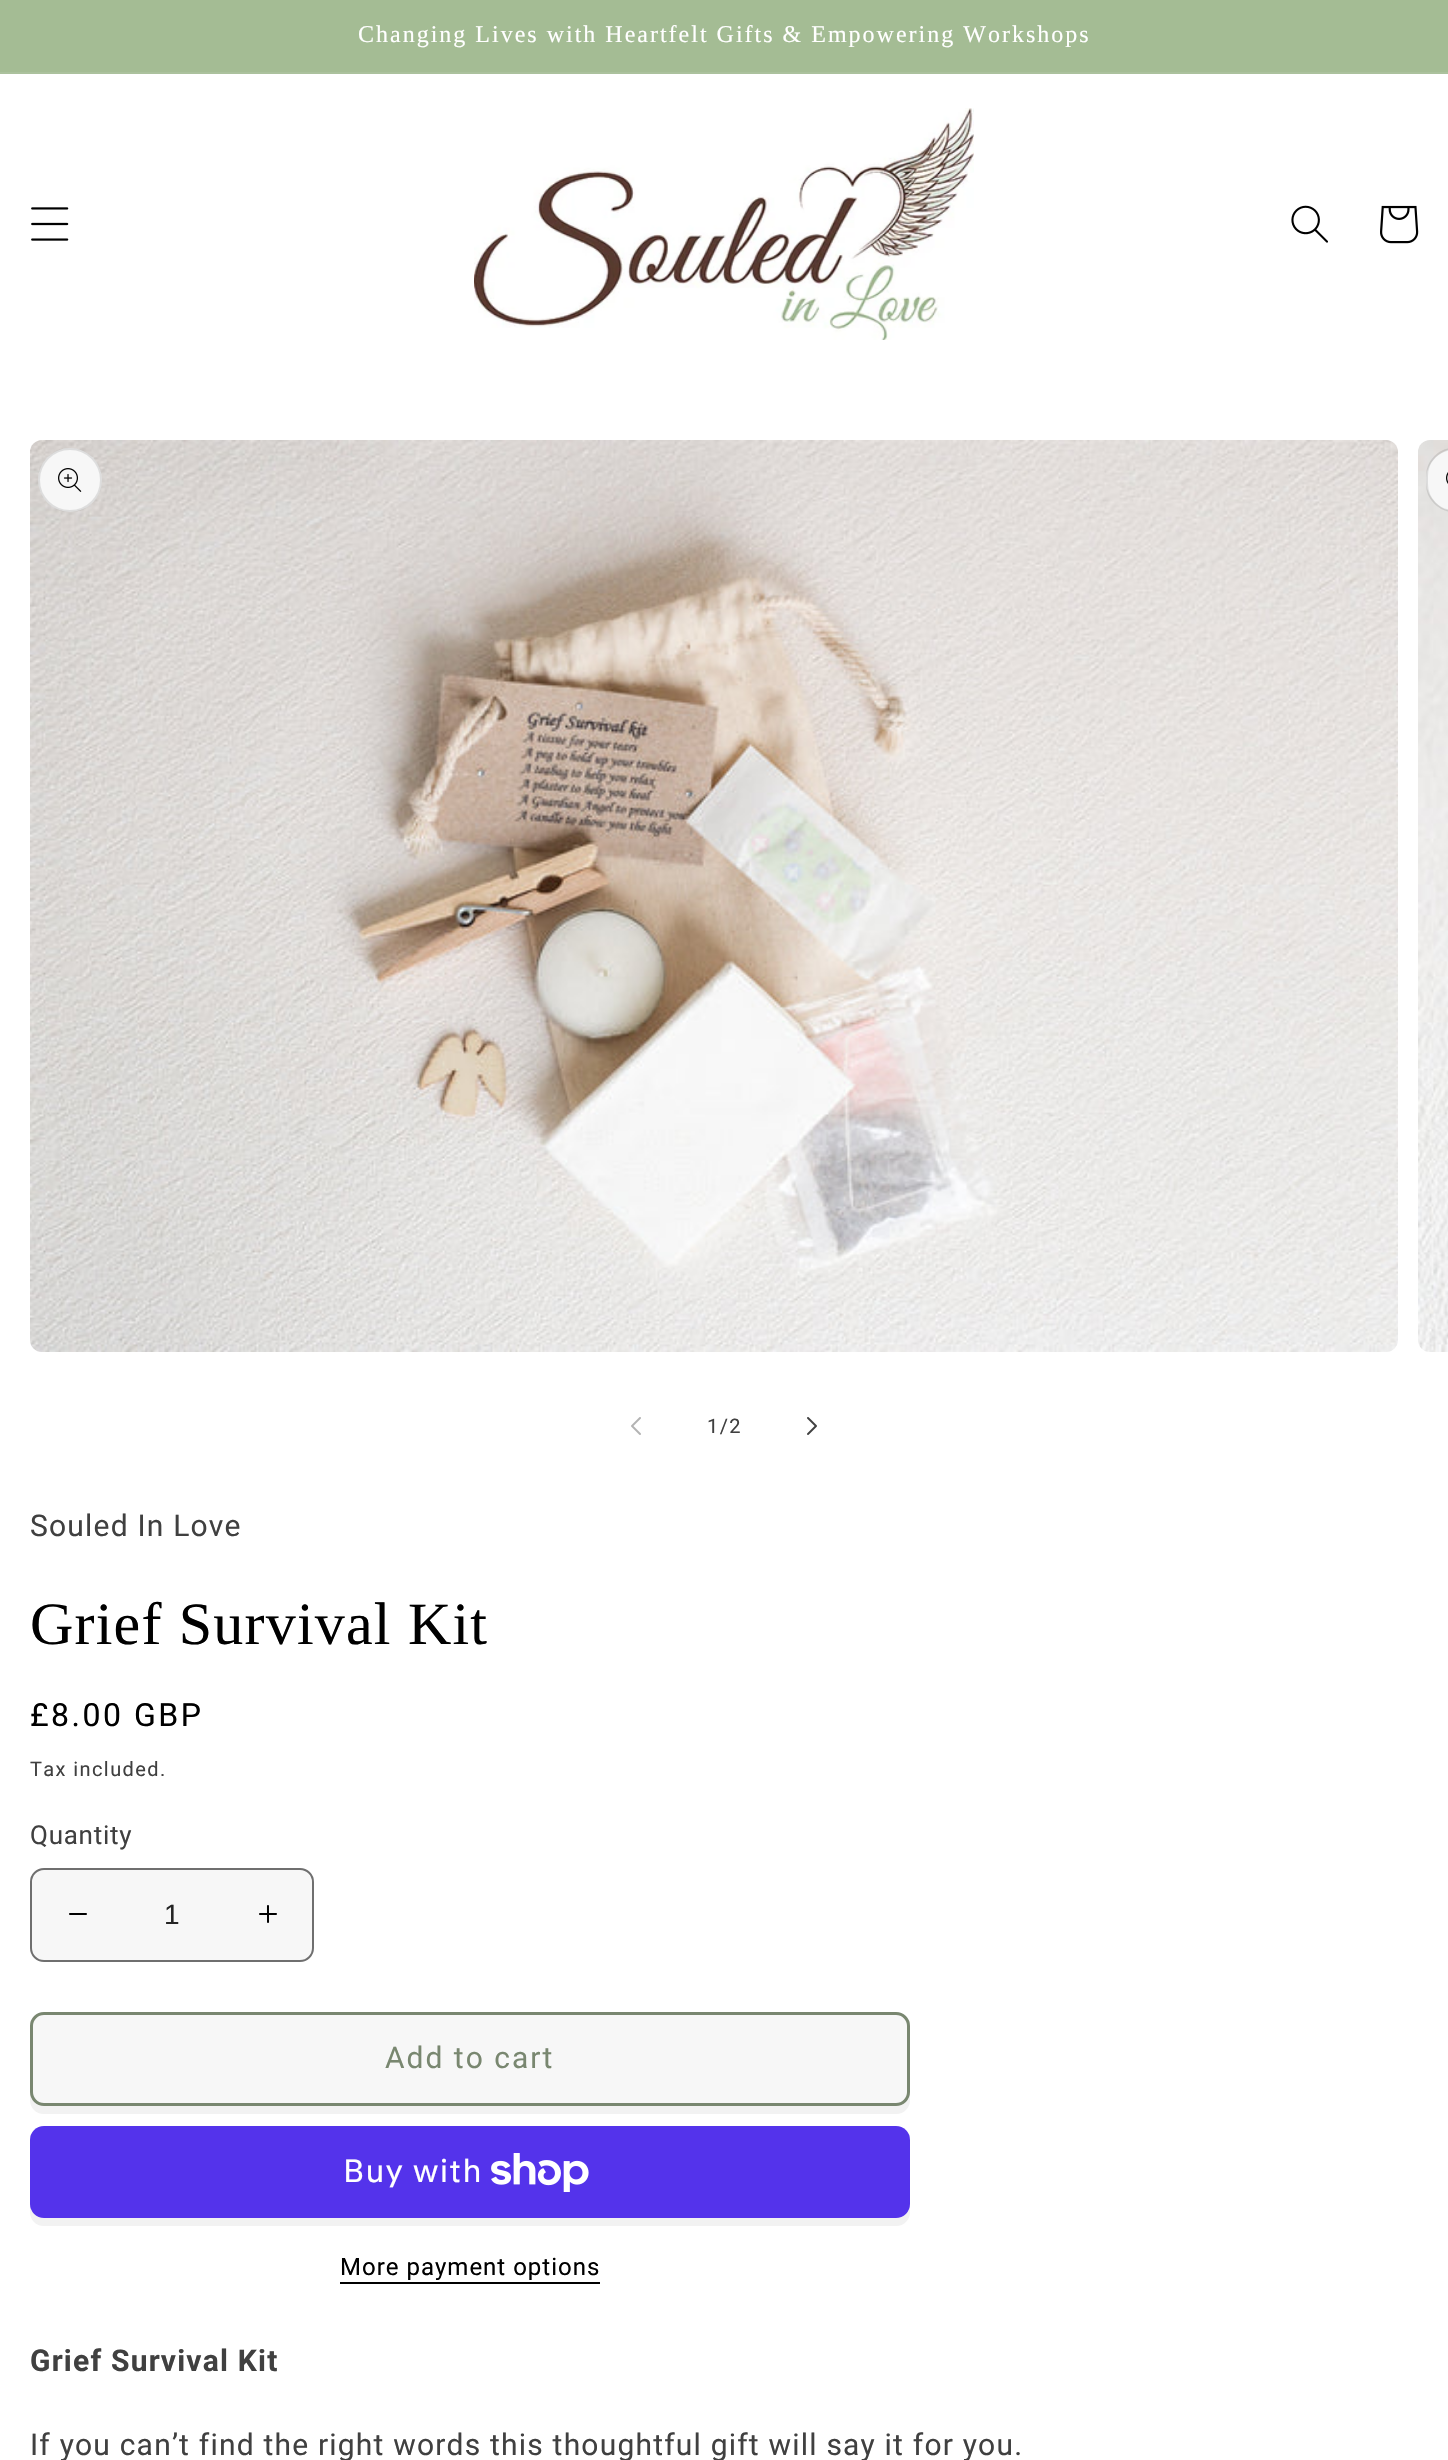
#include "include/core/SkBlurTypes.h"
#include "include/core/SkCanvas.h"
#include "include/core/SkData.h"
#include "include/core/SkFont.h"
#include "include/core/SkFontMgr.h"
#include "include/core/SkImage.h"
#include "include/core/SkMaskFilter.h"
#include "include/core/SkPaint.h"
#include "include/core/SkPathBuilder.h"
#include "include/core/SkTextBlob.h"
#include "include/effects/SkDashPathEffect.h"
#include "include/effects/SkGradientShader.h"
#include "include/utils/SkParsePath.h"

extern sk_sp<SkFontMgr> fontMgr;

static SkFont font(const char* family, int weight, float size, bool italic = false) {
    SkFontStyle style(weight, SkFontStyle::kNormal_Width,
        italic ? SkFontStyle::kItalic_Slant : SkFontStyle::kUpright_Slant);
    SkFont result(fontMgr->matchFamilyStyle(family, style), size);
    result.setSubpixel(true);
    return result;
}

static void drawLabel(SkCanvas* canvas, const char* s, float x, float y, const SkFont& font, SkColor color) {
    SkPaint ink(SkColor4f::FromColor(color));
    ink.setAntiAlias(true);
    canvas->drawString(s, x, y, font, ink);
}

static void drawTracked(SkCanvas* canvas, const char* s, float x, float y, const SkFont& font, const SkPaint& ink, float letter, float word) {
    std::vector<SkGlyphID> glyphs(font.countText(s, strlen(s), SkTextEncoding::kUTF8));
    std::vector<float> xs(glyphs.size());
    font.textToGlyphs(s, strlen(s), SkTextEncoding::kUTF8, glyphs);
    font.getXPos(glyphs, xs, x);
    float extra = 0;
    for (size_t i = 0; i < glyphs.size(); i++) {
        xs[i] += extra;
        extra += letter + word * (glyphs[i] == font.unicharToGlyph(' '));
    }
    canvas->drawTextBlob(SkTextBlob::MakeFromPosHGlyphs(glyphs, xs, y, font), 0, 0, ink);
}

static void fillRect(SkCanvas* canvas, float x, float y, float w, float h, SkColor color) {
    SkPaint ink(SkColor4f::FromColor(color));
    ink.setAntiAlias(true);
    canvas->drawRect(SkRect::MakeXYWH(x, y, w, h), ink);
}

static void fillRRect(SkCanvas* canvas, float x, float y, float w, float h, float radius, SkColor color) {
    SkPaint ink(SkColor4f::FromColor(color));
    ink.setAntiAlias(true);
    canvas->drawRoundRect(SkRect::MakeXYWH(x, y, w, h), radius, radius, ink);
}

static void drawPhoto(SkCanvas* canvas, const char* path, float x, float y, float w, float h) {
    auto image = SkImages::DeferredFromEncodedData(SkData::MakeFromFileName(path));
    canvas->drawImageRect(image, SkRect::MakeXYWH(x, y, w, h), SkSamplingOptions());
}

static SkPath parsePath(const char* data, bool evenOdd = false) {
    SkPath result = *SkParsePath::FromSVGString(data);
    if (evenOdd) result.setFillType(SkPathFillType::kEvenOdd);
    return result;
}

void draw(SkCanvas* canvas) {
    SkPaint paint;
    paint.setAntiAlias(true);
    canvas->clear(0xFFFFFFFF);
    fillRect(canvas, 0, 0, 1448, 72, 0xFFA4BC94);
    fillRect(canvas, 0, 72, 1448, 2, 0xFFABC19D);
    SkFont font1 = font("Liberation Serif", 400, 24);
    paint.setColor(0xFFFFFFFF);
    drawTracked(canvas, "Changing Lives with Heartfelt Gifts & Empowering Workshops", 358, 42, font1, paint, 2, 0);
    drawPhoto(canvas, "assets/img1.png", 31, 207, 38, 34);
    drawPhoto(canvas, "assets/img2.png", 474, 108, 500, 232);
    drawPhoto(canvas, "assets/img3.png", 1291, 205, 37, 38);
    drawPhoto(canvas, "assets/img4.png", 1380, 205, 39, 39);
    drawPhoto(canvas, "assets/img5.png", 30, 440, 1368, 912);
    paint.setColor(0xFFF7F7F7);
    canvas->drawCircle(70, 480, 32, paint);
    paint.setStroke(true);
    paint.setStrokeWidth(2);
    paint.setColor(0x1A000000);
    canvas->drawCircle(70, 480, 31, paint);
    drawPhoto(canvas, "assets/img6.png", 58, 468, 24, 24);
    drawPhoto(canvas, "assets/img7.png", 1418, 440, 30, 912);
    paint.setStroke(false);
    paint.setColor(0xFFF7F7F7);
    canvas->drawPath(parsePath("M1458 448H1448V512H1458C1440.5 512 1426 497.5 1426 480C1426 462.5 1440.5 448 1458 448Z"), paint);
    paint.setStroke(true);
    paint.setColor(0x1A000000);
    canvas->drawRoundRect(SkRect::MakeXYWH(1427, 449, 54, 62), 31, 31, paint);
    drawPhoto(canvas, "assets/img8.png", 1446, 472, 2, 12);
    drawPhoto(canvas, "assets/img9.png", 631, 1417, 10, 18);
    SkFont font2 = font("Roboto", 400, 20);
    paint.setStroke(false);
    paint.setColor(0xFF404040);
    drawTracked(canvas, "1/2", 707, 1433, font2, paint, 1.4f, 0);
    drawPhoto(canvas, "assets/img10.png", 807, 1417, 10, 18);
    SkFont font3 = font("Roboto", 400, 30);
    drawTracked(canvas, "Souled In Love", 30, 1536, font3, paint, 1.2f, 0);
    SkFont font4 = font("Liberation Serif", 400, 60);
    paint.setColor(0xFF000000);
    drawTracked(canvas, "Grief Survival Kit", 30, 1644, font4, paint, 1.2f, 0);
    SkFont font5 = font("Roboto", 400, 32);
    drawTracked(canvas, "£8.00 GBP", 30, 1726, font5, paint, 2.5f, 0);
    paint.setColor(0xFF404040);
    drawTracked(canvas, "Tax included.", 30, 1776, font2, paint, 1.4f, 0);
    SkFont font6 = font("Roboto", 400, 26);
    drawTracked(canvas, "Quantity", 30, 1844, font6, paint, 0.75f, 0);
    fillRRect(canvas, 30, 1868, 284, 94, 14, 0xFFF7F7F7);
    drawPhoto(canvas, "assets/img11.png", 69, 1913, 18, 2);
    drawPhoto(canvas, "assets/img12.png", 259, 1905, 18, 18);
    paint.setStroke(true);
    paint.setColor(0x8C000000);
    canvas->drawRoundRect(SkRect::MakeXYWH(31, 1869, 282, 92), 13, 13, paint);
    SkFont font7 = font("Liberation Sans", 400, 28);
    drawLabel(canvas, "1", 164, 1924, font7, 0xFF252525);
    paint.setStroke(false);
    paint.setColor(0xFFF2F2F2);
    canvas->drawPath(parsePath("M30 2092V2100C30 2108 36 2114 44 2114H896C904 2114 910 2108 910 2100V2092C910 2100 904 2106 896 2106H44C36 2106 30 2100 30 2092Z"), paint);
    fillRRect(canvas, 30, 2012, 880, 94, 14, 0xFFF7F7F7);
    paint.setStroke(true);
    paint.setStrokeWidth(3);
    paint.setColor(0xFF798770);
    canvas->drawRoundRect(SkRect::MakeXYWH(31.5f, 2013.5f, 877, 91), 12.5f, 12.5f, paint);
    paint.setStroke(false);
    drawTracked(canvas, "Add to cart", 385, 2068, font3, paint, 2, 0);
    paint.setColor(0xFFF2F2F2);
    canvas->drawPath(parsePath("M30 2204V2212C30 2220 36 2226 44 2226H896C904 2226 910 2220 910 2212V2204C910 2212 904 2218 896 2218H44C36 2218 30 2212 30 2204Z"), paint);
    fillRRect(canvas, 30, 2126, 880, 92, 14, 0xFF5433EB);
    SkFont font8 = font("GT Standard", 400, 32);
    paint.setColor(0xFFFFFFFF);
    drawTracked(canvas, "Buy with", 343, 2182, font8, paint, 1.2f, 0);
    drawPhoto(canvas, "assets/img13.png", 491, 2153, 98, 39);
    SkFont font9 = font("Roboto", 400, 24);
    paint.setColor(0xFF000000);
    drawTracked(canvas, "More payment options", 340, 2275, font9, paint, 1, 0);
    fillRect(canvas, 340, 2282, 260, 2, 0xFF000000);
    SkFont font10 = font("Roboto", 700, 30);
    paint.setColor(0xFF404040);
    drawTracked(canvas, "Grief Survival Kit", 30, 2371, font10, paint, 1.2f, 0);
    drawTracked(canvas, "If you can’t find the right words this thoughtful gift will say it for you.", 30, 2455, font3, paint, 1.2f, 0);
}
